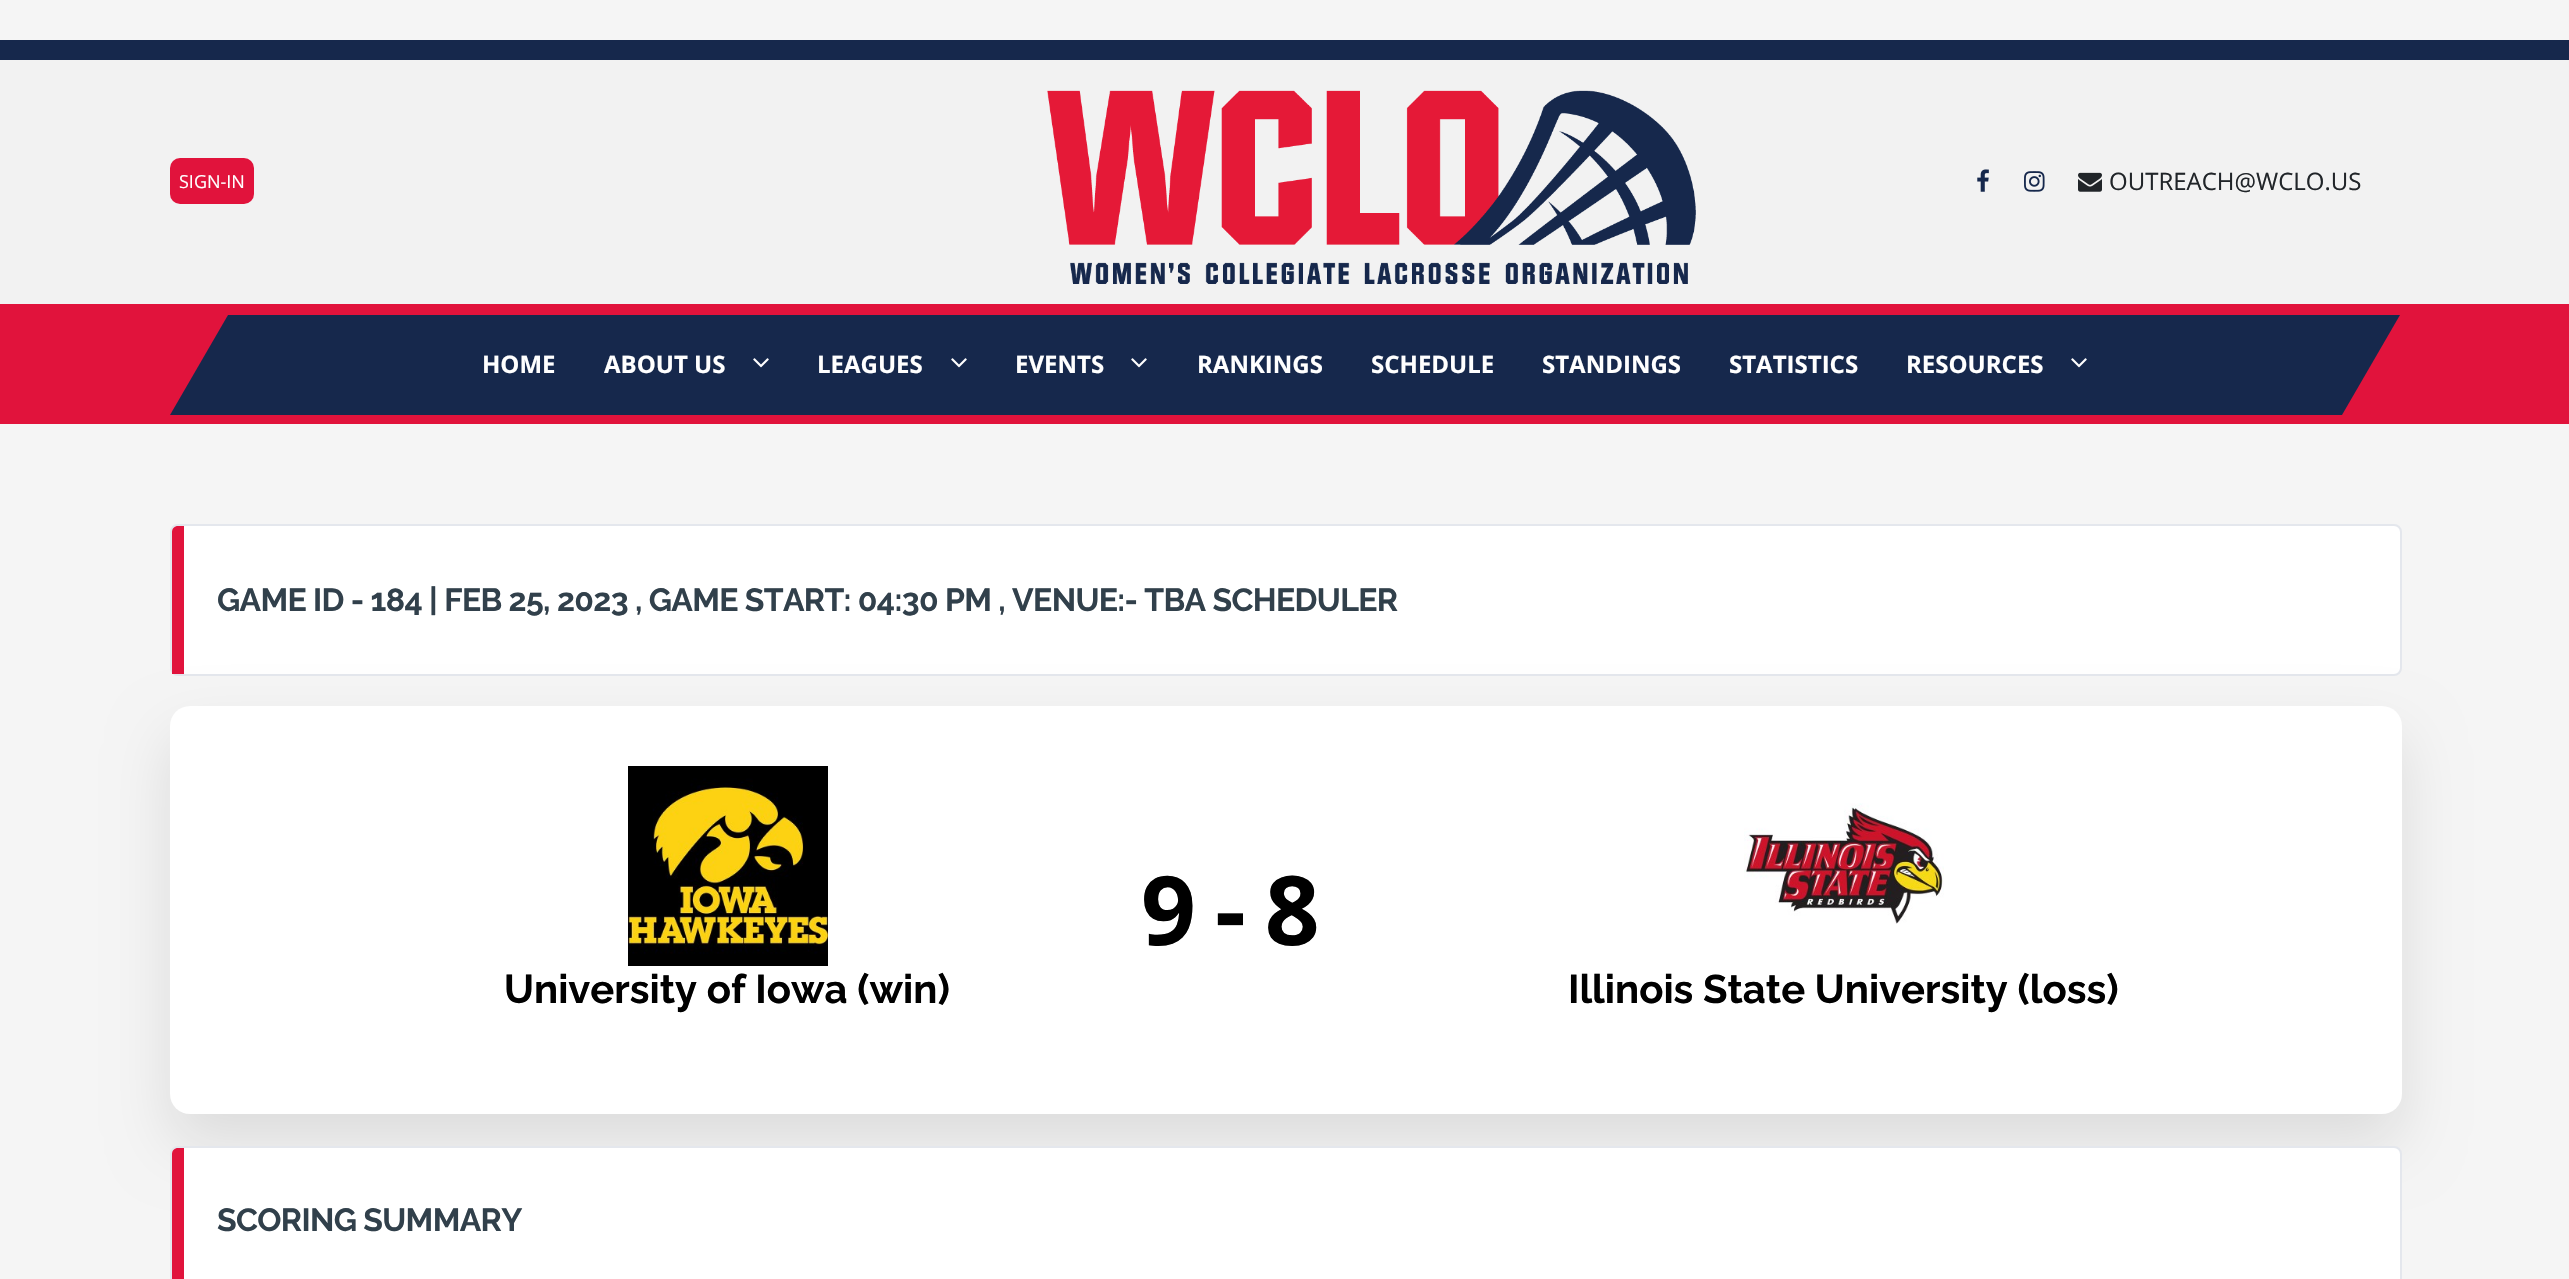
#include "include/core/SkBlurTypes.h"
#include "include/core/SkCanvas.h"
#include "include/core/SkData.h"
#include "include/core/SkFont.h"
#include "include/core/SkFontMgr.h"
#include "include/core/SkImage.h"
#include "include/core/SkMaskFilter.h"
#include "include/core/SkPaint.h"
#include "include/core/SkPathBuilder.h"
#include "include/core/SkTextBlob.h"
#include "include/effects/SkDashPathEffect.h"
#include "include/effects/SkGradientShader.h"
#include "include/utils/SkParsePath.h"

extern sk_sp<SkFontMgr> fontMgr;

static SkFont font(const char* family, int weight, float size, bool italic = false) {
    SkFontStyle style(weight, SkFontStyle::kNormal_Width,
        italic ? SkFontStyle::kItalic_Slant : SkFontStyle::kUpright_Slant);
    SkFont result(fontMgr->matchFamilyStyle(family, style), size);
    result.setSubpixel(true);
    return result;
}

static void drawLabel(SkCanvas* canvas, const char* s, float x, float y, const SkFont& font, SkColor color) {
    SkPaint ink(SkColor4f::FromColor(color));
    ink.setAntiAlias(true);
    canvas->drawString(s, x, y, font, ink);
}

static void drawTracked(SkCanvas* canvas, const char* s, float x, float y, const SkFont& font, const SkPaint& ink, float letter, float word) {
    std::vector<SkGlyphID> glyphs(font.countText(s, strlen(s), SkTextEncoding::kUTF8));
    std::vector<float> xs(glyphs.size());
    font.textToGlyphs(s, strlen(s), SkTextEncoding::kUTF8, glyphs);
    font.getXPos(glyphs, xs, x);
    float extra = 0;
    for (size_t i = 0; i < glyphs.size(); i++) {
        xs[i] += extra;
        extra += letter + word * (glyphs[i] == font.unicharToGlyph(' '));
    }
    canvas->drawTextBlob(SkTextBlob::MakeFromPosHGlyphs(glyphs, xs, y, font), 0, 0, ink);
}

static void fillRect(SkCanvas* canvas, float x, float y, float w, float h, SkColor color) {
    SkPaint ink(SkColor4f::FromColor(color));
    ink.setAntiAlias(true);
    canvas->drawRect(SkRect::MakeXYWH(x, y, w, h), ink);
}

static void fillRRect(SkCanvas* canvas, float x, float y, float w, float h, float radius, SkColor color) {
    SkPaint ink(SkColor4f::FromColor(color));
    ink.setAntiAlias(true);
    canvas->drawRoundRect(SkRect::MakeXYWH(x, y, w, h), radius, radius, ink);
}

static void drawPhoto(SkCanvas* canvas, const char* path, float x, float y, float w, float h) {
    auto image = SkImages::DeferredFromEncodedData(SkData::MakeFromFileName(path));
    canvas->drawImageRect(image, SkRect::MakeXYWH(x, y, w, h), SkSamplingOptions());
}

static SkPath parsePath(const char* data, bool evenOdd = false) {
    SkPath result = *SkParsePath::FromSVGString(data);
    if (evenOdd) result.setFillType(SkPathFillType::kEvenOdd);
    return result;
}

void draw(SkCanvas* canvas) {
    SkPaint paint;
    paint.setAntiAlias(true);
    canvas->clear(0xFFF5F5F5);
    fillRect(canvas, 0, 60, 2569, 244, 0xFFF2F2F2);
    fillRect(canvas, 0, 40, 2569, 20, 0xFF16284C);
    fillRRect(canvas, 170, 158, 84, 46, 10, 0xFFE1133C);
    SkFont font1 = font("Open Sans", 400, 18);
    drawLabel(canvas, "SIGN-IN", 179, 188, font1, 0xFFFFFFFF);
    drawPhoto(canvas, "assets/img1.png", 1047, 90, 649, 194);
    drawPhoto(canvas, "assets/img2.png", 1977, 169, 12, 23);
    drawPhoto(canvas, "assets/img3.png", 2024, 171, 21, 21);
    drawPhoto(canvas, "assets/img4.png", 2078, 172, 24, 20);
    SkFont font2 = font("Open Sans", 400, 24);
    drawLabel(canvas, "OUTREACH@WCLO.US", 2109, 190, font2, 0xFF212529);
    fillRect(canvas, 0, 304, 2569, 120, 0xFFE1133C);
    paint.setColor(0xFF16284C);
    canvas->drawPath(parsePath("M228 315H2400L2342 415H170Z"), paint);
    SkFont font3 = font("Open Sans", 700, 24);
    drawLabel(canvas, "HOME", 482, 373, font3, 0xFFFFFFFF);
    drawLabel(canvas, "ABOUT US", 604, 373, font3, 0xFFFFFFFF);
    drawPhoto(canvas, "assets/img5.png", 753, 358, 16, 10);
    drawLabel(canvas, "LEAGUES", 817, 373, font3, 0xFFFFFFFF);
    drawPhoto(canvas, "assets/img5.png", 951, 358, 16, 10);
    drawLabel(canvas, "EVENTS", 1015, 373, font3, 0xFFFFFFFF);
    drawPhoto(canvas, "assets/img5.png", 1131, 358, 16, 10);
    drawLabel(canvas, "RANKINGS", 1197, 373, font3, 0xFFFFFFFF);
    drawLabel(canvas, "SCHEDULE", 1371, 373, font3, 0xFFFFFFFF);
    drawLabel(canvas, "STANDINGS", 1542, 373, font3, 0xFFFFFFFF);
    drawLabel(canvas, "STATISTICS", 1729, 373, font3, 0xFFFFFFFF);
    drawLabel(canvas, "RESOURCES", 1906, 373, font3, 0xFFFFFFFF);
    drawPhoto(canvas, "assets/img5.png", 2071, 358, 16, 10);
    paint.setColor(0xFFFFFFFF);
    canvas->drawRoundRect(SkRect::MakeXYWH(171, 525, 2230, 150), 7, 7, paint);
    paint.setStroke(true);
    paint.setStrokeWidth(2);
    paint.setColor(0xFFE4E7ED);
    canvas->drawRoundRect(SkRect::MakeXYWH(171, 525, 2230, 150), 7, 7, paint);
    paint.setStroke(false);
    paint.setColor(0xFFE1133C);
    canvas->drawPath(parsePath("M178 526H184V674H172V532C172 528.5 174.5 526 178 526Z"), paint);
    SkFont font4 = font("Raleway", 700, 32);
    paint.setColor(0xFF31404B);
    drawTracked(canvas, "GAME ID - 184 | FEB 25, 2023 , GAME START: 04:30 PM , VENUE:- TBA SCHEDULER", 217, 611, font4, paint, -0.65f, 0);
    paint.setColor(0x1A000000);
    paint.setMaskFilter(SkMaskFilter::MakeBlur(kNormal_SkBlurStyle, 30));
    canvas->drawRoundRect(SkRect::MakeXYWH(170, 736, 2232, 408), 20, 20, paint);
    paint.setMaskFilter(nullptr);
    fillRRect(canvas, 170, 706, 2232, 408, 20, 0xFFFFFFFF);
    SkFont font5 = font("Open Sans", 700, 96);
    paint.setColor(0xFF000000);
    drawTracked(canvas, "9-8", 1141, 945, font5, paint, 19, 0);
    drawPhoto(canvas, "assets/img6.png", 628, 766, 200, 200);
    SkFont font6 = font("Raleway", 700, 40);
    drawLabel(canvas, "University of Iowa (win)", 504, 1003, font6, 0xFF000000);
    drawPhoto(canvas, "assets/img7.png", 1744, 803, 200, 121);
    drawLabel(canvas, "Illinois State University (loss)", 1568, 1003, font6, 0xFF000000);
    paint.setColor(0xFFFFFFFF);
    canvas->drawRoundRect(SkRect::MakeXYWH(171, 1147, 2230, 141), 7, 7, paint);
    paint.setStroke(true);
    paint.setColor(0xFFE4E7ED);
    canvas->drawRoundRect(SkRect::MakeXYWH(171, 1147, 2230, 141), 7, 7, paint);
    paint.setStroke(false);
    paint.setColor(0xFFE1133C);
    canvas->drawPath(parsePath("M178 1148H184V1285H172V1154C172 1150.5 174.5 1148 178 1148Z"), paint);
    paint.setColor(0xFF31404B);
    drawTracked(canvas, "SCORING SUMMARY", 217, 1231, font4, paint, -0.65f, 0);
}
